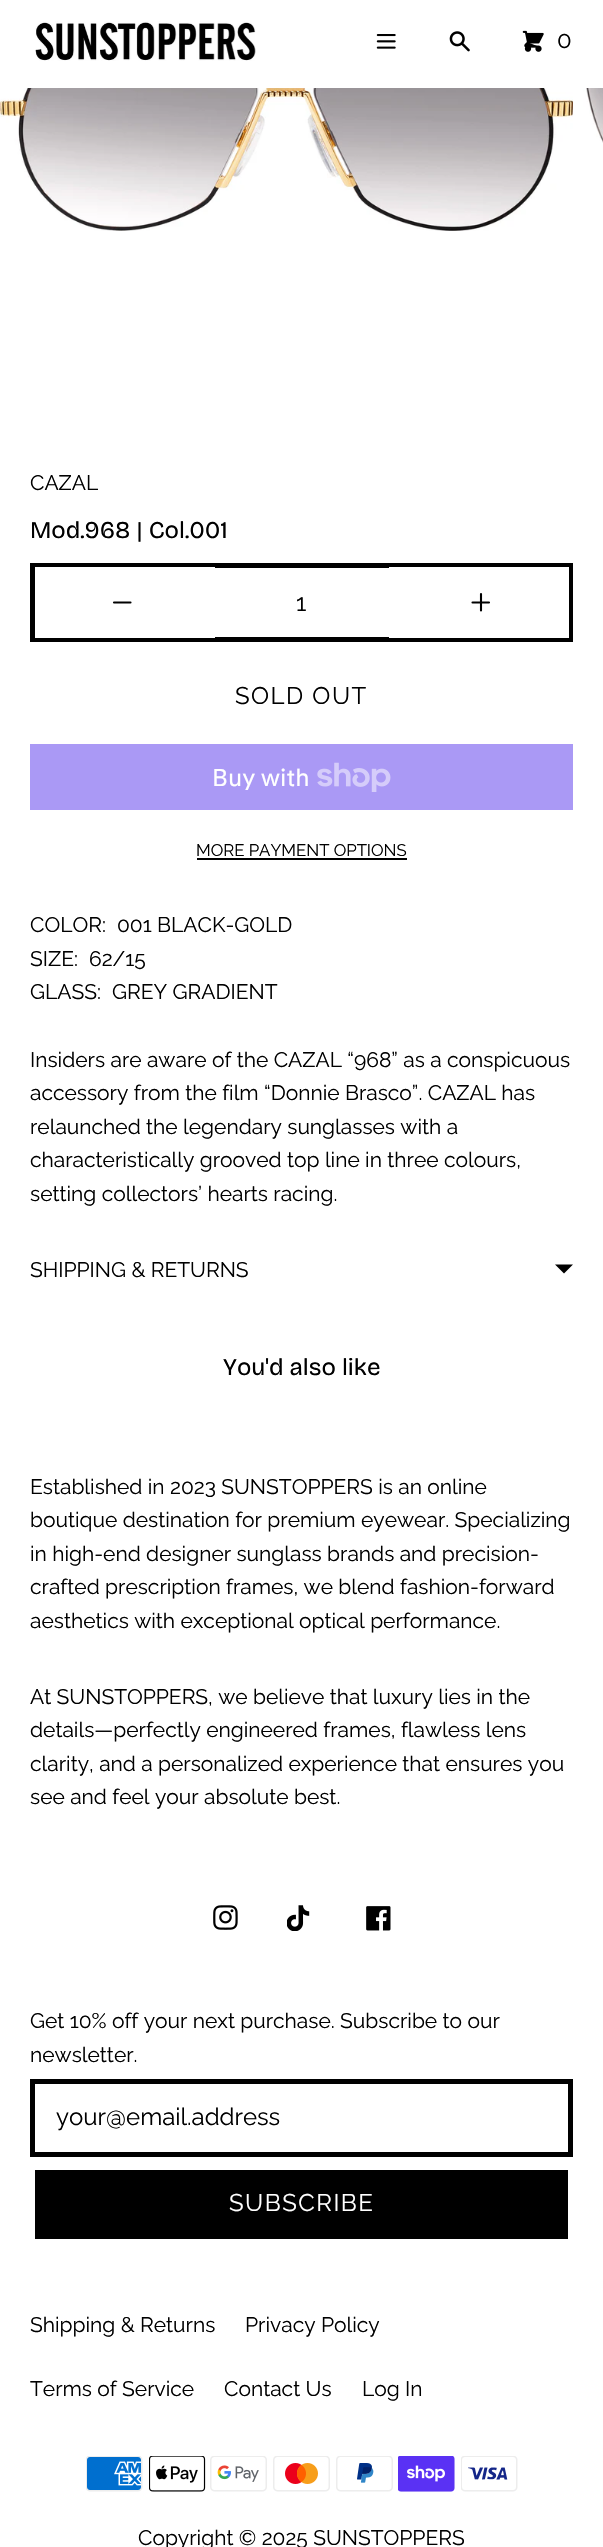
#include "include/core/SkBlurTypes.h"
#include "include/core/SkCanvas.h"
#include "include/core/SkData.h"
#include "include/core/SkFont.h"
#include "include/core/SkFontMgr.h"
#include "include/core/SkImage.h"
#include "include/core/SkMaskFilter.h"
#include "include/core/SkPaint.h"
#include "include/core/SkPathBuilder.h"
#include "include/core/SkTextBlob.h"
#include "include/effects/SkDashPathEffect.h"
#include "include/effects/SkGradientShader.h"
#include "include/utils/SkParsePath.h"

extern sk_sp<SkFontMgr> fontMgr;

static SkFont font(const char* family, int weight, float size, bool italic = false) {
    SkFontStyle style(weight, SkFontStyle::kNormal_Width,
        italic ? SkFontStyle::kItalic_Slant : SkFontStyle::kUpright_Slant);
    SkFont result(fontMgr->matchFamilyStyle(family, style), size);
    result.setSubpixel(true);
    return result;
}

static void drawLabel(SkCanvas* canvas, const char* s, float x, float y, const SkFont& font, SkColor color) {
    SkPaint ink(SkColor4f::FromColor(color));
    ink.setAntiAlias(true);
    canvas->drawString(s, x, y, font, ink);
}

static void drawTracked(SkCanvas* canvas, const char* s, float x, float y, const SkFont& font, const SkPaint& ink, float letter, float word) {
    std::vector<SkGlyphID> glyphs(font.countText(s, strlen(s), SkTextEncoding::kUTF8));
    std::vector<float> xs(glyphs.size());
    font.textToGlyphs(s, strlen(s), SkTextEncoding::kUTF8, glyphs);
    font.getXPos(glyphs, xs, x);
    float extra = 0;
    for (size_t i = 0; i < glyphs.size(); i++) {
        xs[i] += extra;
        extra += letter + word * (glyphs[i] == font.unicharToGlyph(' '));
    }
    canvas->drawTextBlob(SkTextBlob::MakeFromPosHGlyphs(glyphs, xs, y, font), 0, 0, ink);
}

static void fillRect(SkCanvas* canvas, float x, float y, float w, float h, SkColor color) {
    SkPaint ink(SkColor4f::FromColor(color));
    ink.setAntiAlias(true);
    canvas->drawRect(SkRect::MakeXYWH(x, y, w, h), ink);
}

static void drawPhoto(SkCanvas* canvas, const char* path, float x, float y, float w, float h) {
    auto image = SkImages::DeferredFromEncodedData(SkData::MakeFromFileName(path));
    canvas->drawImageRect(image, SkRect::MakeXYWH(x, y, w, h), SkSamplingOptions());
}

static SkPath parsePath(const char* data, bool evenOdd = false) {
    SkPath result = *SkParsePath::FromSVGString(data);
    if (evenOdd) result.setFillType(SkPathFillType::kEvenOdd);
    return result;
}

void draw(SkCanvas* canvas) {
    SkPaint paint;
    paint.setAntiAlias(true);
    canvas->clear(0xFFFFFFFF);
    drawPhoto(canvas, "assets/img1.png", 35, 21, 221, 40);
    drawPhoto(canvas, "assets/img2.png", 376, 34, 20, 15);
    drawPhoto(canvas, "assets/img3.png", 449, 31, 21, 21);
    drawPhoto(canvas, "assets/img4.png", 522, 30, 22, 22);
    SkFont font1 = font("Raleway", 400, 24);
    paint.setColor(0xFF000000);
    drawTracked(canvas, "0", 557, 48, font1, paint, 1.5f, 0);
    drawPhoto(canvas, "assets/img5.png", 0, 88, 573, 143);
    drawPhoto(canvas, "assets/img6.png", 577, 88, 26, 55);
    SkFont font2 = font("Raleway", 400, 21);
    drawLabel(canvas, "CAZAL", 30, 490, font2, 0xFF000000);
    SkFont font3 = font("Bricolage Grotesque", 400, 24);
    drawLabel(canvas, "Mod.968 | Col.001", 30, 538, font3, 0xFF000000);
    paint.setStroke(true);
    paint.setStrokeWidth(5);
    canvas->drawRect(SkRect::MakeXYWH(32.5f, 565.5f, 538, 74), paint);
    canvas->save();
    canvas->clipRect(SkRect::MakeXYWH(35, 567, 534, 71));
    paint.setColor(0xFFFFFFFF);
    canvas->drawRect(SkRect::MakeXYWH(32.5f, 565.5f, 180, 74), paint);
    canvas->restore();
    paint.setStrokeWidth(2.1f);
    paint.setStrokeCap(SkPaint::kRound_Cap);
    paint.setStrokeJoin(SkPaint::kRound_Join);
    paint.setColor(0xFF000000);
    canvas->drawPath(parsePath("M130.5 602.5H114"), paint);
    drawLabel(canvas, "1", 296, 611, font1, 0xFF000000);
    canvas->save();
    canvas->clipRect(SkRect::MakeXYWH(35, 567, 534, 71));
    paint.setStrokeWidth(5);
    paint.setStrokeCap(SkPaint::kButt_Cap);
    paint.setStrokeJoin(SkPaint::kMiter_Join);
    paint.setColor(0xFFFFFFFF);
    canvas->drawRect(SkRect::MakeXYWH(391.5f, 565.5f, 179, 74), paint);
    canvas->restore();
    paint.setStrokeWidth(2.1f);
    paint.setStrokeCap(SkPaint::kRound_Cap);
    paint.setStrokeJoin(SkPaint::kRound_Join);
    paint.setColor(0xFF000000);
    canvas->drawPath(parsePath("M481 594V610.5M489 602.5H472.5"), paint);
    paint.setStroke(false);
    drawTracked(canvas, "SOLD OUT", 235, 704, font1, paint, 1.5f, 0);
    fillRect(canvas, 30, 744, 543, 66, 0xFFAA99F5);
    SkFont font4 = font("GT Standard", 400, 24);
    drawLabel(canvas, "Buy with", 212, 786, font4, 0xFFFFFFFF);
    drawPhoto(canvas, "assets/img7.png", 317, 762, 74, 30);
    SkFont font5 = font("Raleway", 400, 16.75f);
    drawLabel(canvas, "MORE PAYMENT OPTIONS", 196, 856, font5, 0xFF000000);
    fillRect(canvas, 197, 858, 210, 2, 0xFF000000);
    drawLabel(canvas, "COLOR:", 30, 932, font2, 0xFF000000);
    drawLabel(canvas, "001 BLACK-GOLD", 117, 932, font2, 0xFF000000);
    drawLabel(canvas, "SIZE:", 30, 966, font2, 0xFF000000);
    drawLabel(canvas, "62/15", 89, 966, font2, 0xFF000000);
    drawLabel(canvas, "GLASS:", 30, 999, font2, 0xFF000000);
    drawLabel(canvas, "GREY GRADIENT", 112, 999, font2, 0xFF000000);
    drawLabel(canvas, "Insiders are aware of the CAZAL “968” as a conspicuous", 30, 1067, font2, 0xFF000000);
    drawLabel(canvas, "accessory from the film “Donnie Brasco”. CAZAL has", 30, 1100, font2, 0xFF000000);
    drawLabel(canvas, "relaunched the legendary sunglasses with a", 30, 1134, font2, 0xFF000000);
    drawLabel(canvas, "characteristically grooved top line in three colours,", 30, 1167, font2, 0xFF000000);
    drawLabel(canvas, "setting collectors’ hearts racing.", 30, 1201, font2, 0xFF000000);
    drawLabel(canvas, "SHIPPING & RETURNS", 30, 1277, font2, 0xFF000000);
    canvas->drawPath(parsePath("M555 1264.5H573L564 1273.5Z"), paint);
    drawLabel(canvas, "You'd also like", 223, 1375, font3, 0xFF000000);
    drawLabel(canvas, "Established in 2023 SUNSTOPPERS is an online", 30, 1494, font2, 0xFF000000);
    drawLabel(canvas, "boutique destination for premium eyewear. Specializing", 30, 1527, font2, 0xFF000000);
    drawLabel(canvas, "in high-end designer sunglass brands and precision-", 30, 1561, font2, 0xFF000000);
    drawLabel(canvas, "crafted prescription frames, we blend fashion-forward", 30, 1594, font2, 0xFF000000);
    drawLabel(canvas, "aesthetics with exceptional optical performance.", 30, 1628, font2, 0xFF000000);
    drawLabel(canvas, "At SUNSTOPPERS, we believe that luxury lies in the", 30, 1704, font2, 0xFF000000);
    drawLabel(canvas, "details—perfectly engineered frames, flawless lens", 30, 1737, font2, 0xFF000000);
    drawLabel(canvas, "clarity, and a personalized experience that ensures you", 30, 1771, font2, 0xFF000000);
    drawLabel(canvas, "see and feel your absolute best.", 30, 1804, font2, 0xFF000000);
    drawPhoto(canvas, "assets/img8.png", 213, 1905, 25, 25);
    drawPhoto(canvas, "assets/img9.png", 287, 1905, 23, 26);
    drawPhoto(canvas, "assets/img10.png", 366, 1906, 25, 25);
    drawLabel(canvas, "Get 10% off your next purchase. Subscribe to our", 30, 2028, font2, 0xFF000000);
    drawLabel(canvas, "newsletter.", 30, 2062, font2, 0xFF000000);
    paint.setStroke(true);
    paint.setStrokeWidth(5);
    paint.setStrokeCap(SkPaint::kButt_Cap);
    paint.setStrokeJoin(SkPaint::kMiter_Join);
    canvas->drawRect(SkRect::MakeXYWH(32.5f, 2081.5f, 538, 73), paint);
    drawLabel(canvas, "your@email.address", 56, 2125, font1, 0xFF000000);
    fillRect(canvas, 35, 2170, 533, 69, 0xFF000000);
    paint.setStroke(false);
    paint.setColor(0xFFFFFFFF);
    drawTracked(canvas, "SUBSCRIBE", 229, 2211, font1, paint, 1.5f, 0);
    drawLabel(canvas, "Shipping & Returns", 30, 2332, font2, 0xFF000000);
    drawLabel(canvas, "Privacy Policy", 245, 2332, font2, 0xFF000000);
    drawLabel(canvas, "Terms of Service", 30, 2396, font2, 0xFF000000);
    drawLabel(canvas, "Contact Us", 224, 2396, font2, 0xFF000000);
    drawLabel(canvas, "Log In", 362, 2396, font2, 0xFF000000);
    drawPhoto(canvas, "assets/img11.png", 86, 2456, 57, 36);
    drawPhoto(canvas, "assets/img12.png", 149, 2456, 57, 36);
    drawPhoto(canvas, "assets/img13.png", 210, 2456, 57, 36);
    drawPhoto(canvas, "assets/img14.png", 273, 2456, 57, 36);
    drawPhoto(canvas, "assets/img15.png", 336, 2456, 57, 36);
    drawPhoto(canvas, "assets/img16.png", 398, 2456, 57, 36);
    drawPhoto(canvas, "assets/img17.png", 461, 2456, 57, 36);
    drawLabel(canvas, "Copyright © 2025 SUNSTOPPERS", 138, 2545, font2, 0xFF000000);
}
